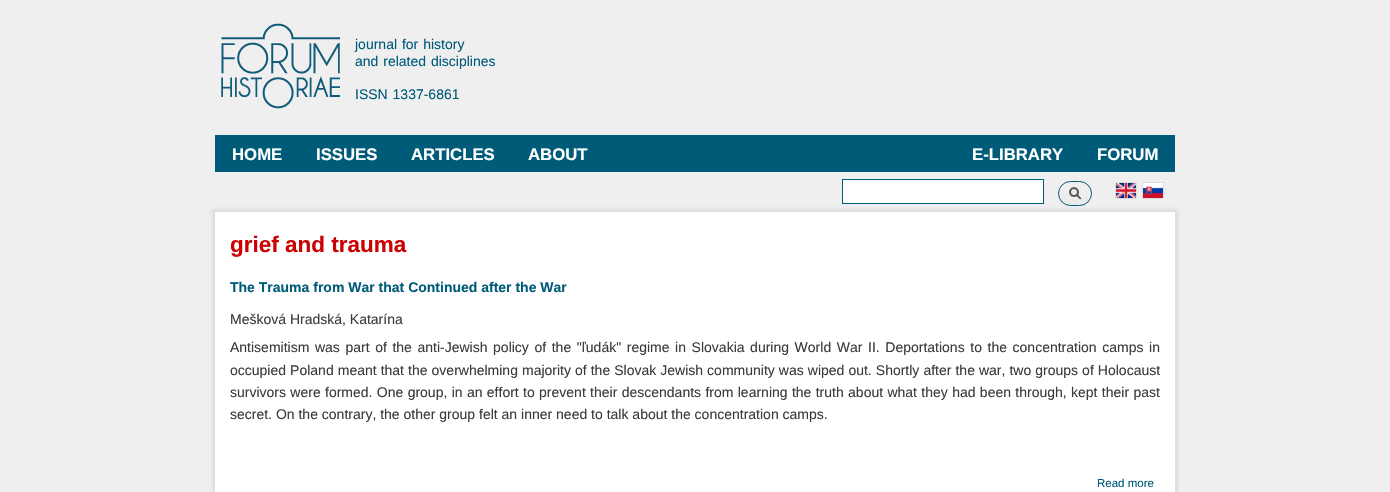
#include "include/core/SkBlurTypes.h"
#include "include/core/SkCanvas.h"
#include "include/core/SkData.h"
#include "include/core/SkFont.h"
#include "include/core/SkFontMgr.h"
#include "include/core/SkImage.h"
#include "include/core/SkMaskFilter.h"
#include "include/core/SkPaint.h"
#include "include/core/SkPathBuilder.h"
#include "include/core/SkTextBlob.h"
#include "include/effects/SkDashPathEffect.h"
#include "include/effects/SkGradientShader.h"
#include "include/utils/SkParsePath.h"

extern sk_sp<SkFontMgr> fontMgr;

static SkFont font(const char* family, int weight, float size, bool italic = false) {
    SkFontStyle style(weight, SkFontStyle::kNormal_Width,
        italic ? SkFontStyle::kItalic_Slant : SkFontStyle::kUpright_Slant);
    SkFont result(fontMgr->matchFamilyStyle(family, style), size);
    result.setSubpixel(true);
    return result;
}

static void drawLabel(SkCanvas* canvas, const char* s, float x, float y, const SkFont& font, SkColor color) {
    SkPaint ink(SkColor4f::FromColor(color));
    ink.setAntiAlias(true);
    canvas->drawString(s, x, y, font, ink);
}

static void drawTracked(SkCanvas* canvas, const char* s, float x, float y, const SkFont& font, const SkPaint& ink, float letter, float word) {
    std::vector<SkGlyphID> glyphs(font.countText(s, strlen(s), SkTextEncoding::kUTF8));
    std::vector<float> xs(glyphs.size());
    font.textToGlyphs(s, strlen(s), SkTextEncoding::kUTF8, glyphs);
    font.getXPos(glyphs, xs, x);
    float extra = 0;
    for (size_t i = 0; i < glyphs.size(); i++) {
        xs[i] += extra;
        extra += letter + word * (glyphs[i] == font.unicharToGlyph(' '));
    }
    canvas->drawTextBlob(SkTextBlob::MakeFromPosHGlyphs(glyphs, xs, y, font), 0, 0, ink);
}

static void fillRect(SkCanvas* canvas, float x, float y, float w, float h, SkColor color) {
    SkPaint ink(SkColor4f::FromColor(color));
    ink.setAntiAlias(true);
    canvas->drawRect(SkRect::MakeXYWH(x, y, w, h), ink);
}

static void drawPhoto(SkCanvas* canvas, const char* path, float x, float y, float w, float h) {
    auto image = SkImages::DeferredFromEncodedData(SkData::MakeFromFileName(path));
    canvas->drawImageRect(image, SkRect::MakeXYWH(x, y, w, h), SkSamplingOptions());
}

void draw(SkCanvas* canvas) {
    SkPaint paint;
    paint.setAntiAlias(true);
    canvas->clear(0xFFEFEFEF);
    drawPhoto(canvas, "assets/img1.png", 221, 23, 119, 86);
    SkFont font1 = font("Liberation Sans", 400, 14);
    paint.setColor(0xFF005B79);
    drawTracked(canvas, "journal for history", 355, 49, font1, paint, 0, 1);
    drawTracked(canvas, "and related disciplines", 355, 66, font1, paint, 0, 1);
    drawTracked(canvas, "ISSN 1337-6861", 355, 99, font1, paint, 0, 1);
    fillRect(canvas, 215, 135, 960, 37, 0xFF005B79);
    SkFont font2 = font("Liberation Sans", 700, 16.75f);
    drawLabel(canvas, "HOME", 232, 160, font2, 0xFFFFFFFF);
    drawLabel(canvas, "ISSUES", 316, 160, font2, 0xFFFFFFFF);
    drawLabel(canvas, "ARTICLES", 411, 160, font2, 0xFFFFFFFF);
    drawLabel(canvas, "ABOUT", 528, 160, font2, 0xFFFFFFFF);
    drawLabel(canvas, "E-LIBRARY", 972, 160, font2, 0xFFFFFFFF);
    drawLabel(canvas, "FORUM", 1097, 160, font2, 0xFFFFFFFF);
    paint.setColor(0xFFDDDDDD);
    paint.setMaskFilter(SkMaskFilter::MakeBlur(kNormal_SkBlurStyle, 1.5f));
    canvas->drawRect(SkRect::MakeXYWH(212, 209, 966, 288), paint);
    paint.setMaskFilter(nullptr);
    paint.setColor(0xFFFFFFFF);
    canvas->drawRect(SkRect::MakeXYWH(842.5f, 179.5f, 201, 24), paint);
    paint.setStroke(true);
    paint.setStrokeWidth(1);
    paint.setColor(0xFF005B79);
    canvas->drawRect(SkRect::MakeXYWH(842.5f, 179.5f, 201, 24), paint);
    drawPhoto(canvas, "assets/img2.png", 1062, 187, 26, 19);
    canvas->drawRoundRect(SkRect::MakeXYWH(1058.5f, 181.5f, 33, 24), 12, 12, paint);
    paint.setColor(0xFFDDDDDD);
    canvas->drawRect(SkRect::MakeXYWH(1115.5f, 182.5f, 21, 16), paint);
    drawPhoto(canvas, "assets/img3.png", 1116, 183, 20, 15);
    canvas->drawRect(SkRect::MakeXYWH(1142.5f, 182.5f, 21, 16), paint);
    drawPhoto(canvas, "assets/img4.png", 1143, 183, 20, 15);
    fillRect(canvas, 215, 212, 960, 280, 0xFFFFFFFF);
    SkFont font3 = font("Liberation Sans", 700, 22.5f);
    drawLabel(canvas, "grief and trauma", 230, 252, font3, 0xFFCC0000);
    SkFont font4 = font("Liberation Sans", 700, 14);
    drawLabel(canvas, "The Trauma from War that Continued after the War", 230, 292, font4, 0xFF005B79);
    drawLabel(canvas, "Mešková Hradská, Katarína", 230, 324, font1, 0xFF3B3B3B);
    paint.setStroke(false);
    paint.setColor(0xFF3B3B3B);
    drawTracked(canvas, "Antisemitism was part of the anti-Jewish policy of the \"ľudák\" regime in Slovakia during World War II. Deportations to the concentration camps in", 230, 352, font1, paint, 0, 1.7f);
    drawTracked(canvas, "occupied Poland meant that the overwhelming majority of the Slovak Jewish community was wiped out. Shortly after the war, two groups of Holocaust", 230, 375, font1, paint, 0, 0.15f);
    drawTracked(canvas, "survivors were formed. One group, in an effort to prevent their descendants from learning the truth about what they had been through, kept their past", 230, 397, font1, paint, 0, 0.45f);
    drawLabel(canvas, "secret. On the contrary, the other group felt an inner need to talk about the concentration camps.", 230, 419, font1, 0xFF3B3B3B);
    SkFont font5 = font("Liberation Sans", 400, 11.5f);
    drawLabel(canvas, "Read more", 1097, 487, font5, 0xFF005B79);
}
